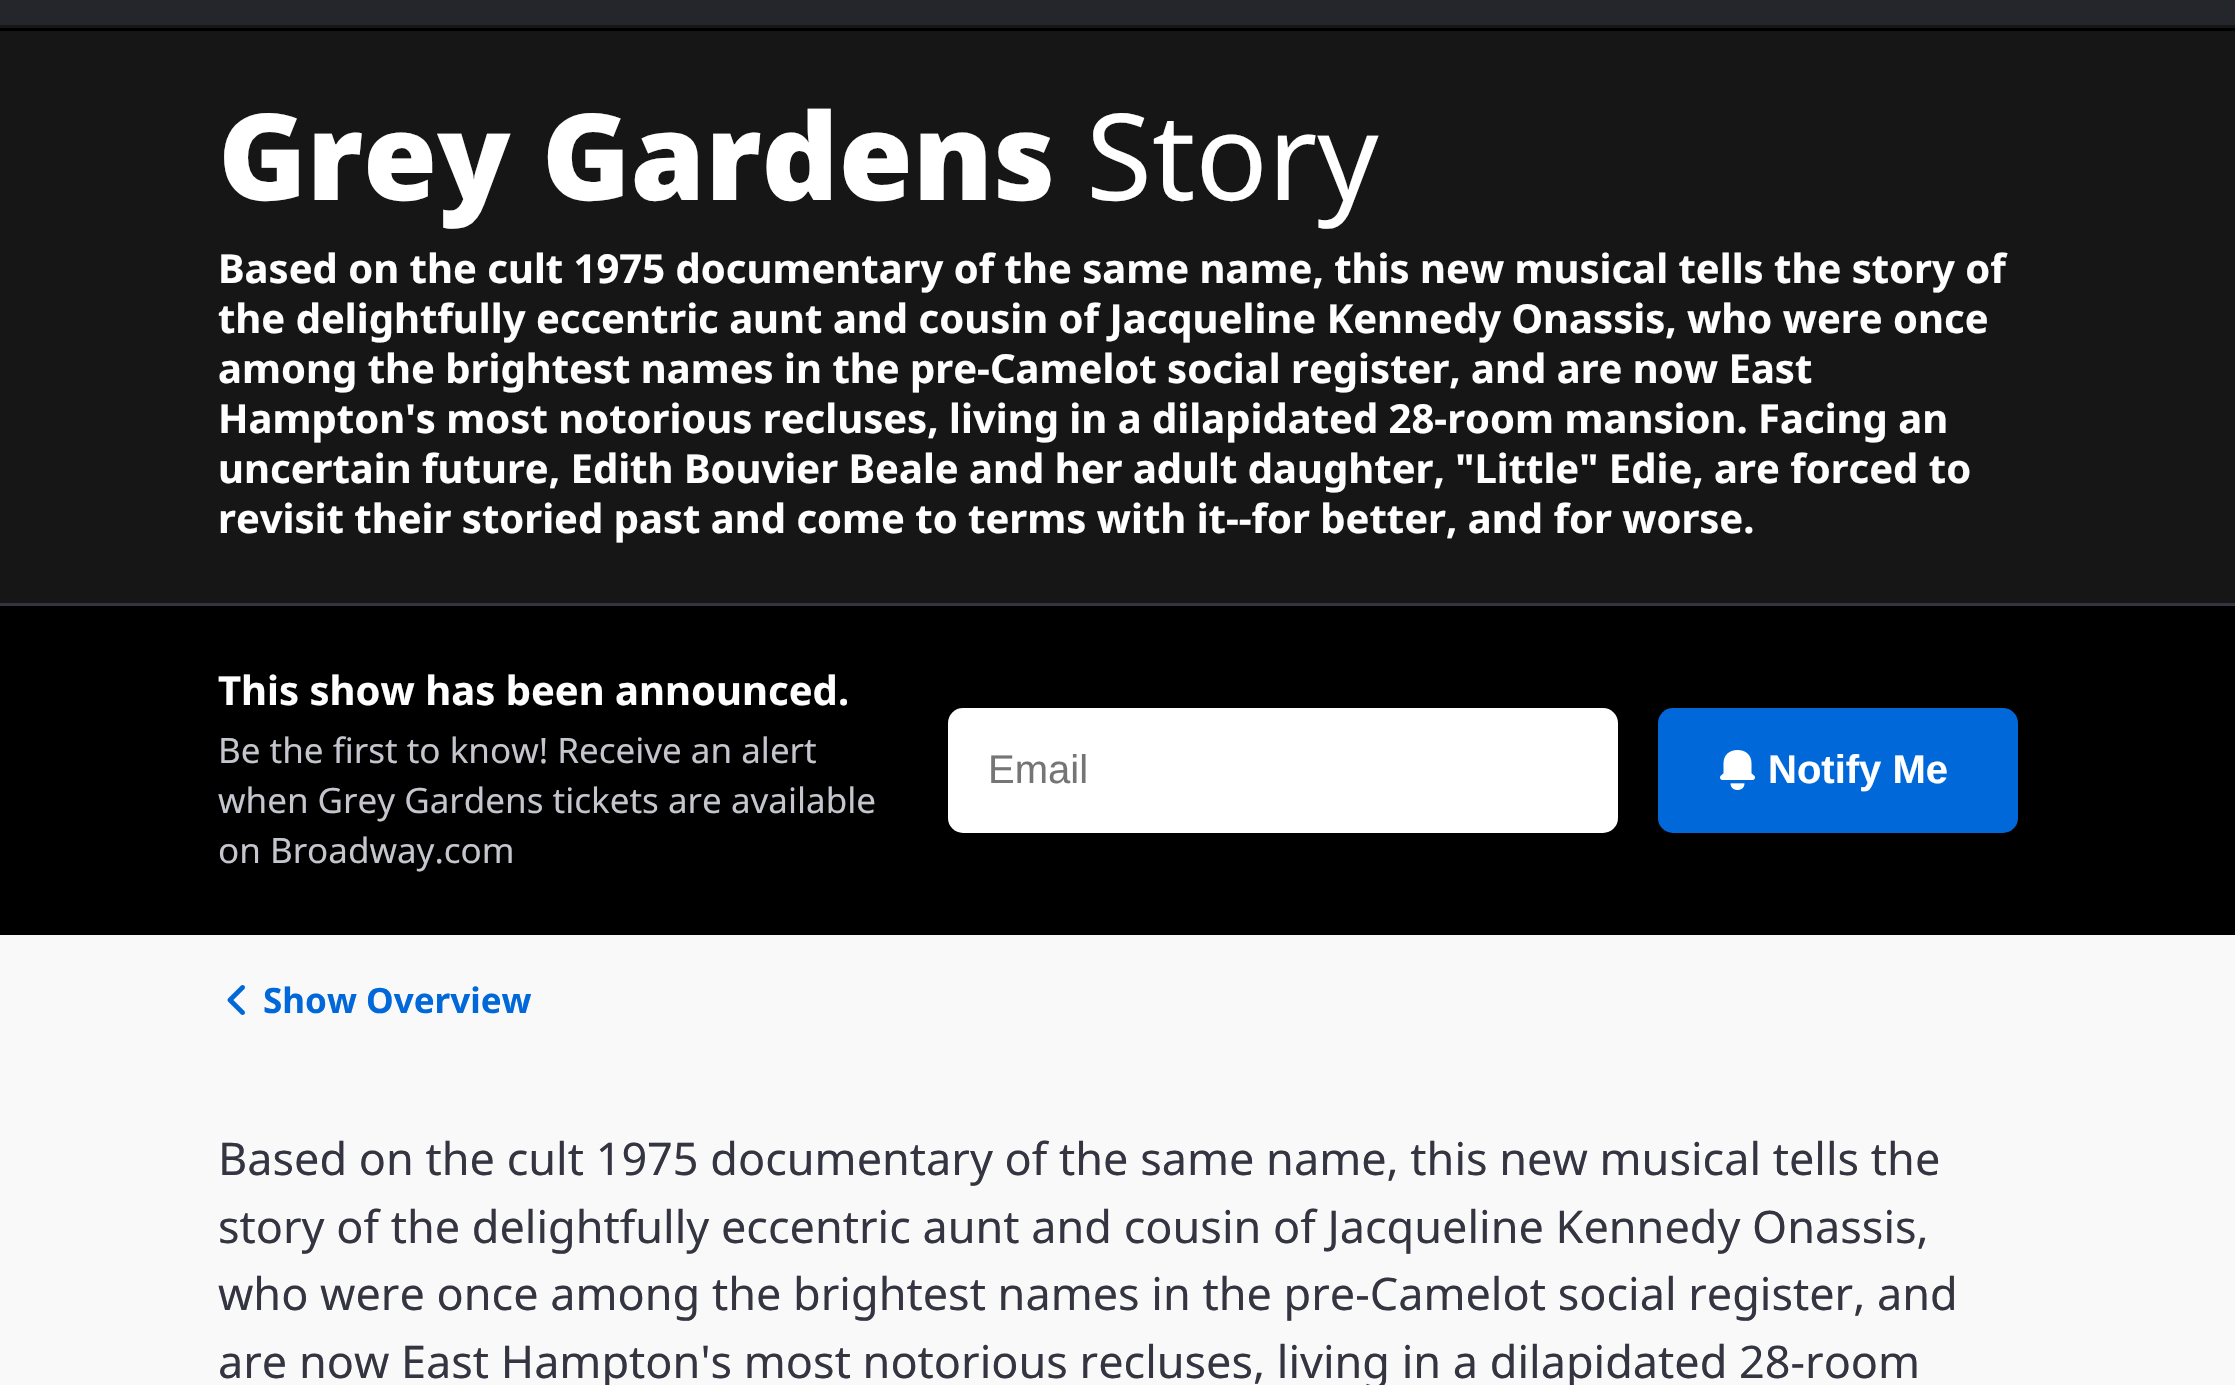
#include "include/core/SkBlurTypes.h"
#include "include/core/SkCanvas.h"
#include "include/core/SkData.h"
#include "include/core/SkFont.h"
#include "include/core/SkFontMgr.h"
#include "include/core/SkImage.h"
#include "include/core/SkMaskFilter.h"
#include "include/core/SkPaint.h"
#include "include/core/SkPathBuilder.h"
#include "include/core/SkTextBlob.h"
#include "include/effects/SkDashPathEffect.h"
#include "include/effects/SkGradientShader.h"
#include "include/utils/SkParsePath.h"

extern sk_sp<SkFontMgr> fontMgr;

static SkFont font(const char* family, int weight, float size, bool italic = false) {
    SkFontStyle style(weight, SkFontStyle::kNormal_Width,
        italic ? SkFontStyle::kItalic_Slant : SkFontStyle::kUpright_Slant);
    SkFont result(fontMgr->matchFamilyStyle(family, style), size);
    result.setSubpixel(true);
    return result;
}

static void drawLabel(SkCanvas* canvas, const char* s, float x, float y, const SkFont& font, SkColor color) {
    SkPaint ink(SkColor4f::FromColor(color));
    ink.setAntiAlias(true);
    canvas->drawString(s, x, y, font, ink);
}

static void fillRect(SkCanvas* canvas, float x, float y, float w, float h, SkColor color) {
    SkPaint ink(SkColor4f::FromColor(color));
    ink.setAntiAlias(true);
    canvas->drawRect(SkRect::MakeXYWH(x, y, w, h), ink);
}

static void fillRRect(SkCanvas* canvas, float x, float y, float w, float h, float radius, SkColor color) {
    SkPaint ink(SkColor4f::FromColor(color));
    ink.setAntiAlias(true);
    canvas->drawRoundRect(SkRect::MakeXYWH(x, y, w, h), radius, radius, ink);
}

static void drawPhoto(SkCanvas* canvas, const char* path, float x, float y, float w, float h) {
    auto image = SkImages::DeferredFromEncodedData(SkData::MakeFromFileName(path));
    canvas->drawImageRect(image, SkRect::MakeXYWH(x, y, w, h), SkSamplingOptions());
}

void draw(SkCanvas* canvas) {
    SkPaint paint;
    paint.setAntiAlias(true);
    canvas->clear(0xFF25262B);
    fillRect(canvas, 0, 25, 2235, 3, 0xFF161616);
    fillRect(canvas, 0, 31, 2235, 572, 0xFF161616);
    fillRect(canvas, 0, 28, 2235, 3, 0xFF000000);
    SkFont font1 = font("Noto Sans", 900, 120);
    drawLabel(canvas, "Grey Gardens", 218, 200, font1, 0xFFFFFFFF);
    SkFont font2 = font("Noto Sans", 400, 120);
    drawLabel(canvas, "Story", 1086, 200, font2, 0xFFFFFFFF);
    SkFont font3 = font("Noto Sans", 700, 40);
    drawLabel(canvas, "Based on the cult 1975 documentary of the same name, this new musical tells the story of", 218, 283, font3, 0xFFFFFFFF);
    drawLabel(canvas, "the delightfully eccentric aunt and cousin of Jacqueline Kennedy Onassis, who were once", 218, 333, font3, 0xFFFFFFFF);
    drawLabel(canvas, "among the brightest names in the pre-Camelot social register, and are now East", 218, 383, font3, 0xFFFFFFFF);
    drawLabel(canvas, "Hampton's most notorious recluses, living in a dilapidated 28-room mansion. Facing an", 218, 433, font3, 0xFFFFFFFF);
    drawLabel(canvas, "uncertain future, Edith Bouvier Beale and her adult daughter, \"Little\" Edie, are forced to", 218, 483, font3, 0xFFFFFFFF);
    drawLabel(canvas, "revisit their storied past and come to terms with it--for better, and for worse.", 218, 533, font3, 0xFFFFFFFF);
    fillRect(canvas, 0, 606, 2235, 329, 0xFF000000);
    fillRect(canvas, 0, 603, 2235, 3, 0xFF343540);
    drawLabel(canvas, "This show has been announced.", 218, 705, font3, 0xFFFFFFFF);
    SkFont font4 = font("Noto Sans", 400, 35);
    drawLabel(canvas, "Be the first to know! Receive an alert", 218, 763, font4, 0xFFC5C6CD);
    drawLabel(canvas, "when Grey Gardens tickets are available", 218, 813, font4, 0xFFC5C6CD);
    drawLabel(canvas, "on Broadway.com", 218, 863, font4, 0xFFC5C6CD);
    fillRRect(canvas, 948, 708, 670, 125, 15, 0xFFFFFFFF);
    SkFont font5 = font("Liberation Sans", 400, 40);
    drawLabel(canvas, "Email", 988, 783, font5, 0xFF757575);
    fillRRect(canvas, 1658, 708, 360, 125, 15, 0xFF0068D9);
    drawPhoto(canvas, "assets/img1.png", 1720, 750, 35, 40);
    SkFont font6 = font("Liberation Sans", 700, 40);
    drawLabel(canvas, "Notify Me", 1768, 783, font6, 0xFFFFFFFF);
    fillRect(canvas, 0, 935, 2235, 450, 0xFFF9F9FA);
    drawPhoto(canvas, "assets/img2.png", 227, 985, 18, 30);
    SkFont font7 = font("Noto Sans", 700, 35);
    drawLabel(canvas, "Show Overview", 263, 1013, font7, 0xFF0068D9);
    SkFont font8 = font("Noto Sans", 400, 45);
    drawLabel(canvas, "Based on the cult 1975 documentary of the same name, this new musical tells the", 218, 1175, font8, 0xFF343540);
    drawLabel(canvas, "story of the delightfully eccentric aunt and cousin of Jacqueline Kennedy Onassis,", 218, 1243, font8, 0xFF343540);
    drawLabel(canvas, "who were once among the brightest names in the pre-Camelot social register, and", 218, 1310, font8, 0xFF343540);
    drawLabel(canvas, "are now East Hampton's most notorious recluses, living in a dilapidated 28-room", 218, 1378, font8, 0xFF343540);
}
